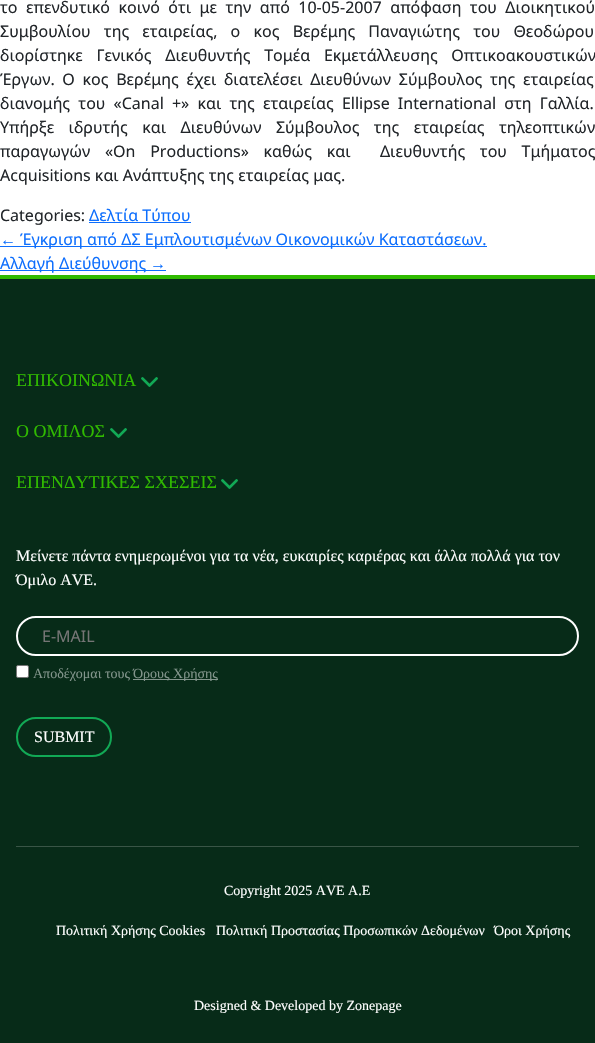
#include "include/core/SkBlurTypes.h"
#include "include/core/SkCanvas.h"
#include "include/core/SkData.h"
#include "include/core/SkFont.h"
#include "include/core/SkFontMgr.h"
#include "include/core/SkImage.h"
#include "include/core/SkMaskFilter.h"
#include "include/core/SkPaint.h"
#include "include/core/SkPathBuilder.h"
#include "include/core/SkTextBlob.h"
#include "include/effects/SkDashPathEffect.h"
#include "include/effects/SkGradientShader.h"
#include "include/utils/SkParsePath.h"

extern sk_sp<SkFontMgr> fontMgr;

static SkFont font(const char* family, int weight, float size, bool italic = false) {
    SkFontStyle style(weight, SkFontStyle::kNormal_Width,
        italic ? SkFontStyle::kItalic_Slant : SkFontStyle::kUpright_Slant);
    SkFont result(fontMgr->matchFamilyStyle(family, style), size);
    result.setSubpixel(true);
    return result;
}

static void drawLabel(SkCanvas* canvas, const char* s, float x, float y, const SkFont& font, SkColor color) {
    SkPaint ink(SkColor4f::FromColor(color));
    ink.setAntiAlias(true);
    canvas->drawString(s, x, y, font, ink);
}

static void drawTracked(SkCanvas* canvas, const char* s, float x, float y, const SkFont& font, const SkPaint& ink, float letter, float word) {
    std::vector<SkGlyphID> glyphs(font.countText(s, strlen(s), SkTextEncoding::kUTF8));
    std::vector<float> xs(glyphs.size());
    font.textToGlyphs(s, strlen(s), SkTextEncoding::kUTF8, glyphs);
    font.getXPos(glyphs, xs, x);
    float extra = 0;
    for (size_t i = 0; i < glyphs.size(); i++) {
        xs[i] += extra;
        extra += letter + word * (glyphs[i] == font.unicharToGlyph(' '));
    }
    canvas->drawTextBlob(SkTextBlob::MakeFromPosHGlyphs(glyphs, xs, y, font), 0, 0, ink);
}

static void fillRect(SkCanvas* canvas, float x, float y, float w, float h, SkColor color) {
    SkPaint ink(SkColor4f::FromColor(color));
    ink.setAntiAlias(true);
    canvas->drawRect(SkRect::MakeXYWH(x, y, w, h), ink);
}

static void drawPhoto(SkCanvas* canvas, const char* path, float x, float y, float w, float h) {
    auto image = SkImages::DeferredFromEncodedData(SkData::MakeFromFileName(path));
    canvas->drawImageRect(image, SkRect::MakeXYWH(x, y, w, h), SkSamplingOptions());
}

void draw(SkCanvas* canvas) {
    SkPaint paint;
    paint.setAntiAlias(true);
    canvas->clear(0xFFFFFFFF);
    SkFont font1 = font("Noto Sans", 400, 16);
    paint.setColor(0xFF212529);
    drawTracked(canvas, "το επενδυτικό κοινό ότι με την από 10-05-2007 απόφαση του Διοικητικού", 0, 13, font1, paint, 0, 4.25f);
    drawTracked(canvas, "Συμβουλίου της εταιρείας, ο κος Βερέμης Παναγιώτης του Θεοδώρου", 0, 37, font1, paint, 0, 9);
    drawTracked(canvas, "διορίστηκε Γενικός Διευθυντής Τομέα Εκμετάλλευσης Οπτικοακουστικών", 0, 61, font1, paint, 0, 9.5f);
    drawTracked(canvas, "Έργων. Ο κος Βερέμης έχει διατελέσει Διευθύνων Σύμβουλος της εταιρείας", 0, 85, font1, paint, 0, 3.5f);
    drawTracked(canvas, "διανομής του «Canal +» και της εταιρείας Ellipse International στη Γαλλία.", 0, 109, font1, paint, 0, 4);
    drawTracked(canvas, "Υπήρξε ιδρυτής και Διευθύνων Σύμβουλος της εταιρείας τηλεοπτικών", 0, 133, font1, paint, 0, 10.25f);
    drawTracked(canvas, "παραγωγών «On Productions» καθώς και  Διευθυντής του Τμήματος", 0, 157, font1, paint, 0, 10.5f);
    drawLabel(canvas, "Acquisitions και Ανάπτυξης της εταιρείας μας.", 0, 181, font1, 0xFF212529);
    drawLabel(canvas, "Categories:", 0, 221, font1, 0xFF212529);
    drawLabel(canvas, "Δελτία Τύπου", 89, 221, font1, 0xFF0D6EFD);
    fillRect(canvas, 89, 222, 102, 1, 0xFF0D6EFD);
    SkFont font2 = font("Liberation Sans", 400, 16);
    drawLabel(canvas, "←", 0, 245, font2, 0xFF0D6EFD);
    fillRect(canvas, 0, 246, 487, 1, 0xFF0D6EFD);
    drawLabel(canvas, "Έγκριση από ΔΣ Eμπλουτισμένων Oικονομικών Kαταστάσεων.", 20, 245, font1, 0xFF0D6EFD);
    fillRect(canvas, 0, 270, 166, 1, 0xFF0D6EFD);
    drawLabel(canvas, "Αλλαγή Διεύθυνσης", 0, 269, font1, 0xFF0D6EFD);
    drawLabel(canvas, "→", 150, 269, font2, 0xFF0D6EFD);
    fillRect(canvas, 0, 279, 595, 764, 0xFF072B18);
    fillRect(canvas, 0, 275, 595, 4, 0xFF30BA00);
    SkFont font3 = font("Liberation Serif", 400, 18);
    drawLabel(canvas, "ΕΠΙΚΟΙΝΩΝΙΑ", 16, 386, font3, 0xFF30BA00);
    drawPhoto(canvas, "assets/img1.png", 141, 377, 17, 10);
    drawLabel(canvas, "Ο ΟΜΙΛΟΣ", 16, 437, font3, 0xFF30BA00);
    drawPhoto(canvas, "assets/img1.png", 110, 428, 17, 10);
    drawLabel(canvas, "ΕΠΕΝΔΥΤΙΚΕΣ ΣΧΕΣΕΙΣ", 16, 488, font3, 0xFF30BA00);
    drawPhoto(canvas, "assets/img1.png", 221, 479, 17, 10);
    SkFont font4 = font("Liberation Serif", 400, 16);
    drawLabel(canvas, "Μείνετε πάντα ενημερωμένοι για τα νέα, ευκαιρίες καριέρας και άλλα πολλά για τον", 16, 561, font4, 0xFFFFFFFF);
    drawLabel(canvas, "Όμιλο AVE.", 16, 585, font4, 0xFFFFFFFF);
    paint.setStroke(true);
    paint.setStrokeWidth(2);
    paint.setColor(0xFFFFFFFF);
    canvas->drawRoundRect(SkRect::MakeXYWH(17, 617, 561, 38), 19, 19, paint);
    drawLabel(canvas, "E-MAIL", 42, 642, font1, 0xFF757575);
    paint.setStroke(false);
    canvas->drawRoundRect(SkRect::MakeXYWH(16.5f, 665.5f, 12, 12), 1.5f, 1.5f, paint);
    paint.setStroke(true);
    paint.setStrokeWidth(1);
    paint.setColor(0xFF767676);
    canvas->drawRoundRect(SkRect::MakeXYWH(16.5f, 665.5f, 12, 12), 1.5f, 1.5f, paint);
    SkFont font5 = font("Liberation Serif", 400, 14);
    drawLabel(canvas, "Αποδέχομαι τους", 33, 678, font5, 0xFF83958C);
    fillRect(canvas, 133, 679, 85, 1, 0xFF83958C);
    drawLabel(canvas, "Όρους Χρήσης", 133, 678, font5, 0xFF83958C);
    paint.setStrokeWidth(2);
    paint.setColor(0xFF11A955);
    canvas->drawRoundRect(SkRect::MakeXYWH(17, 718, 94, 38), 19, 19, paint);
    drawLabel(canvas, "SUBMIT", 34, 742, font4, 0xFFFFFFFF);
    fillRect(canvas, 16, 846, 563, 1, 0xFF395546);
    drawLabel(canvas, "Copyright 2025 AVE A.E", 224, 895, font5, 0xFFFFFFFF);
    drawLabel(canvas, "Πολιτική Χρήσης Cookies", 56, 935, font5, 0xFFFFFFFF);
    drawLabel(canvas, "Πολιτική Προστασίας Προσωπικών Δεδομένων", 216, 935, font5, 0xFFFFFFFF);
    drawLabel(canvas, "Όροι Χρήσης", 494, 935, font5, 0xFFFFFFFF);
    drawLabel(canvas, "Designed & Developed by Zonepage", 194, 1010, font5, 0xFFFFFFFF);
}
